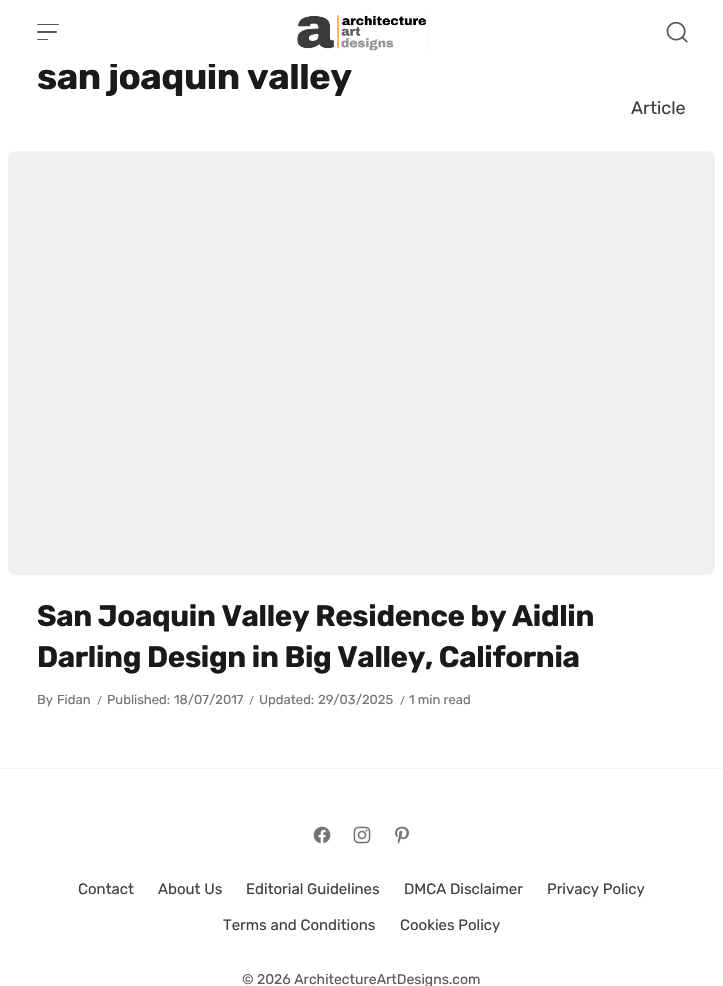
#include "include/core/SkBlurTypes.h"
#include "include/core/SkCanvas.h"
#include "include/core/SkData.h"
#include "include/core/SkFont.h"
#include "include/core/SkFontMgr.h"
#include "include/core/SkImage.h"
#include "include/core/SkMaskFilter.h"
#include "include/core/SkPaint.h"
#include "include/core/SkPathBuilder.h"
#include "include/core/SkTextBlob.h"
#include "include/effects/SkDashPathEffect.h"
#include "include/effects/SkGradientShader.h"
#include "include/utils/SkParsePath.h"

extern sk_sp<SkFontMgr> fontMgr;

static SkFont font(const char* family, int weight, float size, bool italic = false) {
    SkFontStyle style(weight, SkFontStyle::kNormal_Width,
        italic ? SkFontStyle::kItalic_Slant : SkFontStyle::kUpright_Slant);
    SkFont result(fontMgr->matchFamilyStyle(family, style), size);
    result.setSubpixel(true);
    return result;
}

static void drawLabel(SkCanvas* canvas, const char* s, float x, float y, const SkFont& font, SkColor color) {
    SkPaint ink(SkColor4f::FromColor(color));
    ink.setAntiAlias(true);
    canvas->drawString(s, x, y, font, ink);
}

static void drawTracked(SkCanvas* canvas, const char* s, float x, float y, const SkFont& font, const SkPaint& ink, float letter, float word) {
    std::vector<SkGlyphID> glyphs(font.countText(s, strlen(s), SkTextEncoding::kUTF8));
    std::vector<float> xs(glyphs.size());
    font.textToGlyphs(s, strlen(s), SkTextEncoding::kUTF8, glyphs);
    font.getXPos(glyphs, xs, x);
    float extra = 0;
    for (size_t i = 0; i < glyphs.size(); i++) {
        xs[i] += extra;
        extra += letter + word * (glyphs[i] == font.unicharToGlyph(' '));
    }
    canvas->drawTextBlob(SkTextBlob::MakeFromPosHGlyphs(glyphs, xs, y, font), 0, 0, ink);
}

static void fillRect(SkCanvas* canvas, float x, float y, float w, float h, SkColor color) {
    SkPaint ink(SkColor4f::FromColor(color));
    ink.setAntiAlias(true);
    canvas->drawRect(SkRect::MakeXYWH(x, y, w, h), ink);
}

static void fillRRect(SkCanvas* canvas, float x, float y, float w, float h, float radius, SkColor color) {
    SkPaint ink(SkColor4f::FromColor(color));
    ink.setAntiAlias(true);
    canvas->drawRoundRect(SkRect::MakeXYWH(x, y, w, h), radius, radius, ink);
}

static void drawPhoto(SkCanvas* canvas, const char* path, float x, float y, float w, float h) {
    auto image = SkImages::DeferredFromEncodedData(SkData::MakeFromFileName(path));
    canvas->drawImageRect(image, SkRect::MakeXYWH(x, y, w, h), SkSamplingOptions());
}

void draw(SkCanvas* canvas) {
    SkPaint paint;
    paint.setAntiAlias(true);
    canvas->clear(0xFFFFFFFF);
    SkFont font1 = font("Rubik", 700, 36.5f);
    paint.setColor(0xFF1A1A1A);
    drawTracked(canvas, "san joaquin valley", 37, 89, font1, paint, -0.5f, 0);
    fillRect(canvas, 110, 62, 199, 2, 0xFFFFFFFF);
    fillRRect(canvas, 37, 24, 22, 1, 0.5f, 0xFF595959);
    fillRRect(canvas, 37, 31, 20, 2, 1, 0xFF595959);
    fillRRect(canvas, 37, 39, 11, 1, 0.5f, 0xFF595959);
    drawPhoto(canvas, "assets/img1.png", 297, 12, 132, 40);
    drawPhoto(canvas, "assets/img2.png", 666, 21, 22, 22);
    SkFont font2 = font("Rubik", 400, 18);
    drawLabel(canvas, "Article", 631, 114, font2, 0xFF404040);
    fillRRect(canvas, 8, 151, 707, 424, 8, 0xFFF0F0F0);
    SkFont font3 = font("Rubik", 700, 29.5f);
    drawTracked(canvas, "San Joaquin Valley Residence by Aidlin", 37, 626, font3, paint, -0.35f, 0);
    drawTracked(canvas, "Darling Design in Big Valley, California", 37, 667, font3, paint, -0.35f, 0);
    SkFont font4 = font("Rubik", 400, 13);
    drawLabel(canvas, "By", 37, 704, font4, 0xFF737373);
    drawLabel(canvas, "Fidan", 57, 704, font4, 0xFF737373);
    SkFont font5 = font("Rubik", 400, 10);
    drawLabel(canvas, "/", 97, 704, font5, 0xFF737373);
    drawLabel(canvas, "Published:", 107, 704, font4, 0xFF737373);
    drawLabel(canvas, "18/07/2017", 174, 704, font4, 0xFF737373);
    drawLabel(canvas, "/", 249, 704, font5, 0xFF737373);
    drawLabel(canvas, "Updated:", 259, 704, font4, 0xFF737373);
    drawLabel(canvas, "29/03/2025", 318, 704, font4, 0xFF737373);
    drawLabel(canvas, "/", 400, 704, font5, 0xFF737373);
    drawLabel(canvas, "1 min read", 409, 704, font4, 0xFF737373);
    fillRect(canvas, 0, 768, 723, 1, 0xFFF0F0F0);
    drawPhoto(canvas, "assets/img3.png", 313, 826, 18, 18);
    drawPhoto(canvas, "assets/img4.png", 353, 826, 18, 18);
    drawPhoto(canvas, "assets/img5.png", 395, 826, 14, 18);
    SkFont font6 = font("Rubik", 400, 15);
    drawLabel(canvas, "Contact", 78, 894, font6, 0xFF404040);
    drawLabel(canvas, "About Us", 158, 894, font6, 0xFF404040);
    drawLabel(canvas, "Editorial Guidelines", 246, 894, font6, 0xFF404040);
    drawLabel(canvas, "DMCA Disclaimer", 404, 894, font6, 0xFF404040);
    drawLabel(canvas, "Privacy Policy", 547, 894, font6, 0xFF404040);
    drawLabel(canvas, "Terms and Conditions", 223, 930, font6, 0xFF404040);
    drawLabel(canvas, "Cookies Policy", 400, 930, font6, 0xFF404040);
    SkFont font7 = font("Rubik", 400, 14);
    drawLabel(canvas, "© 2026 ArchitectureArtDesigns.com", 242, 984, font7, 0xFF595959);
}
